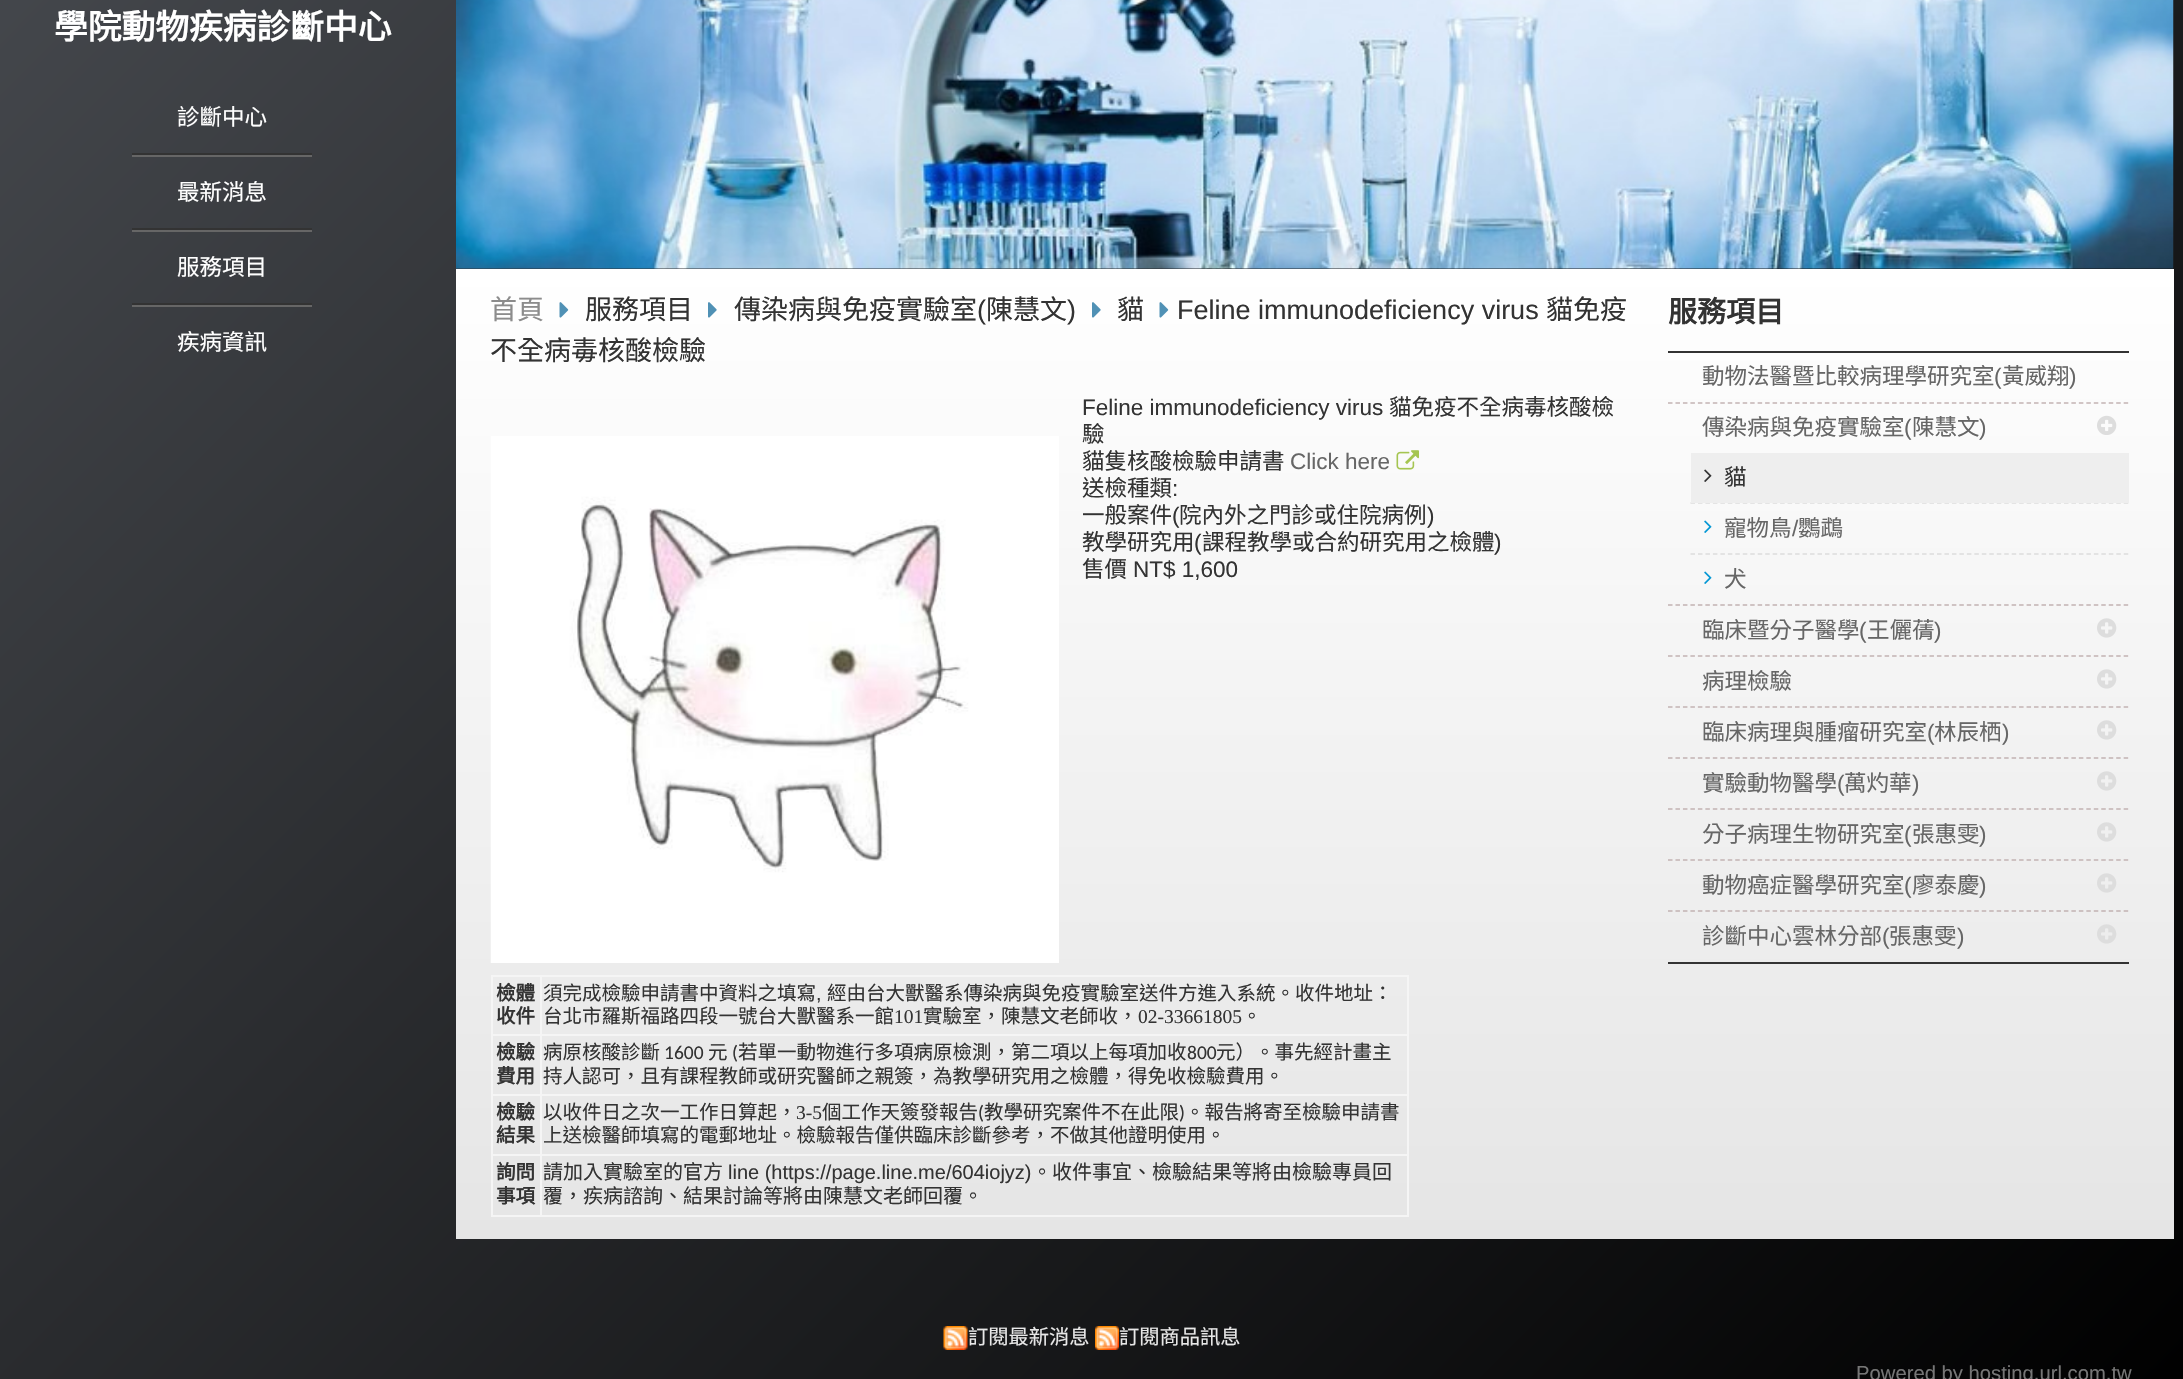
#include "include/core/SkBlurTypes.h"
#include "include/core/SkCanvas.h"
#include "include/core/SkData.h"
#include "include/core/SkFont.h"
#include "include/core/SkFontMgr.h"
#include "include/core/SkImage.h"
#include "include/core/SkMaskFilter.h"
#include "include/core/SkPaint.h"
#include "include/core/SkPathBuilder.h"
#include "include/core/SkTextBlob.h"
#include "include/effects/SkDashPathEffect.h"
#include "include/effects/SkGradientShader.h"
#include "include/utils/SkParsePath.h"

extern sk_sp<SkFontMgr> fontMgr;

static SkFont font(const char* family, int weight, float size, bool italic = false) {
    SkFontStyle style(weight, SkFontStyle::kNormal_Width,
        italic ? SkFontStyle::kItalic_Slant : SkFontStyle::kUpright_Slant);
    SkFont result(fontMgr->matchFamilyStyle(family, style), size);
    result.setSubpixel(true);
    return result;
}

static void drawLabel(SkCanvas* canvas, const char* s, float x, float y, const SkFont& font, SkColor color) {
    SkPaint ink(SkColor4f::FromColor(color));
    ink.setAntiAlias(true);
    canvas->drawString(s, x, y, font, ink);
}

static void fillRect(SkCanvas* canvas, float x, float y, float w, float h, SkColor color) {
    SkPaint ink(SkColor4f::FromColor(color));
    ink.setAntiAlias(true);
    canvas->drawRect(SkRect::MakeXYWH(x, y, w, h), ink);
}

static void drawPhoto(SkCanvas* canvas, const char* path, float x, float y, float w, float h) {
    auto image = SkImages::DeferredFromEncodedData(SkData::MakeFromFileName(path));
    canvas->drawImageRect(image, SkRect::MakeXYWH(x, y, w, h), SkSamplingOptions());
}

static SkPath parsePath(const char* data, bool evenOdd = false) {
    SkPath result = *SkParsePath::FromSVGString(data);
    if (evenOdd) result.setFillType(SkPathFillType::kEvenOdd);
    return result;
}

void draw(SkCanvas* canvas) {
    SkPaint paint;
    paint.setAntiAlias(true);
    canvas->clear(0xFFFFFFFF);
    {
        const SkColor colors[] = {0xFF45484D, 0xFF000000};
        const float stops[] = {0, 1};
        const SkPoint ends[] = {{171, -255}, {2013, 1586}};
        paint.setShader(SkGradientShader::MakeLinear(ends, colors, stops, 2, SkTileMode::kClamp));
        paint.setAlpha(255);
    }
    canvas->drawRect(SkRect::MakeXYWH(0, 0, 2183, 1379), paint);
    SkFont font1 = font("Noto Sans CJK TC", 700, 33.75f);
    drawLabel(canvas, "學院動物疾病診斷中心", 54, 39, font1, 0xFFFFFFFF);
    fillRect(canvas, 132, 153, 180, 2, 0xFF333333);
    SkFont font2 = font("Noto Sans CJK TC", 400, 22.5f);
    drawLabel(canvas, "診斷中心", 177, 125, font2, 0xFFFFFFFF);
    fillRect(canvas, 132, 155, 180, 2, 0xFF666666);
    fillRect(canvas, 132, 228, 180, 2, 0xFF333333);
    drawLabel(canvas, "最新消息", 177, 200, font2, 0xFFFFFFFF);
    fillRect(canvas, 132, 230, 180, 2, 0xFF666666);
    fillRect(canvas, 132, 303, 180, 2, 0xFF333333);
    drawLabel(canvas, "服務項目", 177, 275, font2, 0xFFFFFFFF);
    fillRect(canvas, 132, 305, 180, 2, 0xFF666666);
    drawLabel(canvas, "疾病資訊", 177, 350, font2, 0xFFFFFFFF);
    drawPhoto(canvas, "assets/img1.png", 456, 0, 1718, 269);
    {
        const SkColor colors[] = {0xFFFFFFFF, 0xFFE5E5E5};
        const float stops[] = {0, 1};
        const SkPoint ends[] = {{1315, 268}, {1315, 1239}};
        paint.setShader(SkGradientShader::MakeLinear(ends, colors, stops, 2, SkTileMode::kClamp));
        paint.setAlpha(255);
    }
    canvas->drawRect(SkRect::MakeXYWH(456, 269, 1718, 970), paint);
    SkFont font3 = font("Noto Sans CJK TC", 400, 27);
    drawLabel(canvas, "首頁", 490, 319, font3, 0xFF8C8C8C);
    drawPhoto(canvas, "assets/img2.png", 559, 302, 10, 16);
    drawLabel(canvas, "服務項目", 585, 319, font3, 0xFF333333);
    drawPhoto(canvas, "assets/img3.png", 708, 302, 9, 16);
    drawLabel(canvas, "傳染病與免疫實驗室", 734, 319, font3, 0xFF333333);
    SkFont font4 = font("Liberation Sans", 400, 27);
    drawLabel(canvas, "(", 977, 319, font4, 0xFF333333);
    drawLabel(canvas, "陳慧文", 986, 319, font3, 0xFF333333);
    drawLabel(canvas, ")", 1067, 319, font4, 0xFF333333);
    drawPhoto(canvas, "assets/img3.png", 1092, 302, 9, 16);
    drawLabel(canvas, "貓", 1117, 319, font3, 0xFF333333);
    drawPhoto(canvas, "assets/img2.png", 1159, 302, 10, 16);
    drawLabel(canvas, "Feline immunodeficiency virus", 1177, 319, font4, 0xFF333333);
    drawLabel(canvas, "貓免疫", 1546, 319, font3, 0xFF333333);
    drawLabel(canvas, "不全病毒核酸檢驗", 490, 360, font3, 0xFF333333);
    SkFont font5 = font("Liberation Sans", 400, 22.5f);
    drawLabel(canvas, "Feline immunodeficiency virus", 1082, 415, font5, 0xFF333333);
    drawLabel(canvas, "貓免疫不全病毒核酸檢", 1389, 415, font2, 0xFF333333);
    drawLabel(canvas, "驗", 1082, 442, font2, 0xFF333333);
    drawPhoto(canvas, "assets/img4.png", 490, 436, 569, 527);
    drawLabel(canvas, "貓隻核酸檢驗申請書", 1082, 469, font2, 0xFF333333);
    drawLabel(canvas, "Click here", 1290, 469, font5, 0xFF666666);
    drawPhoto(canvas, "assets/img5.png", 1396, 450, 23, 20);
    drawLabel(canvas, "送檢種類", 1082, 496, font2, 0xFF333333);
    drawLabel(canvas, ":", 1172, 496, font5, 0xFF333333);
    drawLabel(canvas, "一般案件", 1082, 523, font2, 0xFF333333);
    drawLabel(canvas, "(", 1172, 523, font5, 0xFF333333);
    drawLabel(canvas, "院內外之門診或住院病例", 1179, 523, font2, 0xFF333333);
    drawLabel(canvas, ")", 1427, 523, font5, 0xFF333333);
    drawLabel(canvas, "教學研究用", 1082, 550, font2, 0xFF333333);
    drawLabel(canvas, "(", 1194, 550, font5, 0xFF333333);
    drawLabel(canvas, "課程教學或合約研究用之檢體", 1202, 550, font2, 0xFF333333);
    drawLabel(canvas, ")", 1494, 550, font5, 0xFF333333);
    drawLabel(canvas, "售價", 1082, 577, font2, 0xFF333333);
    drawLabel(canvas, "NT$ 1,600", 1133, 577, font5, 0xFF333333);
    fillRect(canvas, 491, 975, 918, 2, 0xFFF5F5F5);
    fillRect(canvas, 1407, 975, 2, 242, 0xFFF5F5F5);
    fillRect(canvas, 491, 1215, 918, 2, 0xFFF5F5F5);
    fillRect(canvas, 491, 975, 2, 242, 0xFFF5F5F5);
    SkFont font6 = font("Noto Sans CJK TC", 700, 19.5f);
    drawLabel(canvas, "檢體", 496, 1000, font6, 0xFF333333);
    drawLabel(canvas, "收件", 496, 1023, font6, 0xFF333333);
    fillRect(canvas, 540, 1034, 869, 2, 0xFFF5F5F5);
    fillRect(canvas, 540, 1094, 869, 2, 0xFFF5F5F5);
    fillRect(canvas, 540, 1154, 869, 2, 0xFFF5F5F5);
    fillRect(canvas, 540, 1154, 2, 63, 0xFFF5F5F5);
    fillRect(canvas, 491, 1154, 51, 2, 0xFFF5F5F5);
    fillRect(canvas, 540, 1094, 2, 61, 0xFFF5F5F5);
    fillRect(canvas, 491, 1094, 51, 2, 0xFFF5F5F5);
    fillRect(canvas, 540, 1034, 2, 61, 0xFFF5F5F5);
    fillRect(canvas, 491, 1034, 51, 2, 0xFFF5F5F5);
    fillRect(canvas, 540, 975, 2, 60, 0xFFF5F5F5);
    SkFont font7 = font("Noto Sans CJK TC", 400, 19.5f);
    drawLabel(canvas, "須完成檢驗申請書中資料之填寫", 543, 1000, font7, 0xFF333333);
    SkFont font8 = font("Liberation Sans", 400, 19.5f);
    drawLabel(canvas, ",", 816, 1000, font8, 0xFF333333);
    drawLabel(canvas, "經由台大獸醫系傳染病與免疫實驗室送件方進入系統。收件地址：", 827, 1000, font7, 0xFF333333);
    drawLabel(canvas, "台北市羅斯福路四段一號台大獸醫系一館", 543, 1023, font7, 0xFF333333);
    SkFont font9 = font("Liberation Serif", 400, 19.5f);
    drawLabel(canvas, "101", 894, 1023, font9, 0xFF333333);
    drawLabel(canvas, "實驗室，陳慧文老師收，", 923, 1023, font7, 0xFF333333);
    drawLabel(canvas, "02-33661805", 1138, 1023, font9, 0xFF333333);
    drawLabel(canvas, "。", 1242, 1023, font7, 0xFF333333);
    drawLabel(canvas, "檢驗", 496, 1059, font6, 0xFF333333);
    drawLabel(canvas, "費用", 496, 1083, font6, 0xFF333333);
    drawLabel(canvas, "病原核酸診斷", 543, 1059, font7, 0xFF333333);
    SkFont font10 = font("Carlito", 400, 19.5f);
    drawLabel(canvas, "1600", 664, 1059, font10, 0xFF333333);
    drawLabel(canvas, "元", 708, 1059, font7, 0xFF333333);
    drawLabel(canvas, "(", 732, 1059, font10, 0xFF333333);
    drawLabel(canvas, "若單一動物進行多項病原檢測，第二項以上每項加收", 738, 1059, font7, 0xFF333333);
    drawLabel(canvas, "800", 1187, 1059, font10, 0xFF333333);
    drawLabel(canvas, "元）。事先經計畫主", 1216, 1059, font7, 0xFF333333);
    drawLabel(canvas, "持人認可，且有課程教師或研究醫師之親簽，為教學研究用之檢體，得免收檢驗費用。", 543, 1083, font7, 0xFF333333);
    drawLabel(canvas, "檢驗", 496, 1119, font6, 0xFF333333);
    drawLabel(canvas, "結果", 496, 1142, font6, 0xFF333333);
    drawLabel(canvas, "以收件日之次一工作日算起，", 543, 1119, font7, 0xFF333333);
    drawLabel(canvas, "3-5", 796, 1119, font9, 0xFF333333);
    drawLabel(canvas, "個工作天簽發報告", 822, 1119, font7, 0xFF333333);
    drawLabel(canvas, "(", 978, 1119, font10, 0xFF333333);
    drawLabel(canvas, "教學研究案件不在此限", 984, 1119, font7, 0xFF333333);
    drawLabel(canvas, ")", 1179, 1119, font10, 0xFF333333);
    drawLabel(canvas, "。報告將寄至檢驗申請書", 1185, 1119, font7, 0xFF333333);
    drawLabel(canvas, "上送檢醫師填寫的電郵地址。檢驗報告僅供臨床診斷參考，不做其他證明使用。", 543, 1142, font7, 0xFF333333);
    drawLabel(canvas, "詢問", 496, 1179, font6, 0xFF333333);
    drawLabel(canvas, "事項", 496, 1203, font6, 0xFF333333);
    SkFont font11 = font("Noto Sans CJK TC", 400, 20);
    drawLabel(canvas, "請加入實驗室的官方", 543, 1179, font11, 0xFF333333);
    SkFont font12 = font("Liberation Sans", 400, 20);
    drawLabel(canvas, "line (https://page.line.me/604iojyz)", 728, 1179, font12, 0xFF333333);
    drawLabel(canvas, "。收件事宜、檢驗結果等將由檢驗專員回", 1032, 1179, font11, 0xFF333333);
    drawLabel(canvas, "覆，疾病諮詢、結果討論等將由陳慧文老師回覆。", 543, 1203, font11, 0xFF333333);
    fillRect(canvas, 1668, 351, 461, 2, 0xFF333333);
    SkFont font13 = font("Noto Sans CJK TC", 700, 29);
    drawLabel(canvas, "服務項目", 1668, 322, font13, 0xFF333333);
    paint.setStroke(true);
    paint.setStrokeWidth(1.5f);
    paint.setShader(nullptr);
    paint.setColor(0xFFC3B3B3);
    paint.setPathEffect(SkDashPathEffect::Make({{4.5f, 2.97f}}, 0));
    canvas->drawPath(parsePath("M1668 403H2128.5"), paint);
    paint.setPathEffect(nullptr);
    drawLabel(canvas, "動物法醫暨比較病理學研究室", 1702, 384, font2, 0xFF666666);
    drawLabel(canvas, "(", 1994, 384, font5, 0xFF666666);
    drawLabel(canvas, "黃威翔", 2002, 384, font2, 0xFF666666);
    drawLabel(canvas, ")", 2069, 384, font5, 0xFF666666);
    paint.setPathEffect(SkDashPathEffect::Make({{4.5f, 2.97f}}, 0));
    canvas->drawPath(parsePath("M1668 605H2128.5"), paint);
    paint.setPathEffect(nullptr);
    drawLabel(canvas, "傳染病與免疫實驗室", 1702, 435, font2, 0xFF666666);
    drawLabel(canvas, "(", 1904, 435, font5, 0xFF666666);
    drawLabel(canvas, "陳慧文", 1912, 435, font2, 0xFF666666);
    drawLabel(canvas, ")", 1979, 435, font5, 0xFF666666);
    drawPhoto(canvas, "assets/img6.png", 2097, 415, 20, 20);
    paint.setColor(0xFFDDDDDD);
    paint.setPathEffect(SkDashPathEffect::Make({{4.5f, 2.97f}}, 0));
    canvas->drawPath(parsePath("M1690.5 503H2128.5"), paint);
    paint.setPathEffect(nullptr);
    fillRect(canvas, 1691, 453, 438, 50, 0xFFEEEEEE);
    drawPhoto(canvas, "assets/img7.png", 1704, 469, 8, 13);
    drawLabel(canvas, "貓", 1724, 485, font2, 0xFF333333);
    paint.setPathEffect(SkDashPathEffect::Make({{4.5f, 2.97f}}, 0));
    canvas->drawPath(parsePath("M1690.5 554H2128.5"), paint);
    paint.setPathEffect(nullptr);
    drawPhoto(canvas, "assets/img8.png", 1704, 520, 8, 13);
    drawLabel(canvas, "寵物鳥", 1724, 536, font2, 0xFF666666);
    drawLabel(canvas, "/", 1792, 536, font5, 0xFF666666);
    drawLabel(canvas, "鸚鵡", 1798, 536, font2, 0xFF666666);
    drawPhoto(canvas, "assets/img9.png", 1704, 571, 8, 13);
    drawLabel(canvas, "犬", 1724, 587, font2, 0xFF666666);
    paint.setColor(0xFFC3B3B3);
    paint.setPathEffect(SkDashPathEffect::Make({{4.5f, 2.97f}}, 0));
    canvas->drawPath(parsePath("M1668 656H2128.5"), paint);
    paint.setPathEffect(nullptr);
    drawLabel(canvas, "臨床暨分子醫學", 1702, 638, font2, 0xFF666666);
    drawLabel(canvas, "(", 1859, 638, font5, 0xFF666666);
    drawLabel(canvas, "王儷蒨", 1867, 638, font2, 0xFF666666);
    drawLabel(canvas, ")", 1934, 638, font5, 0xFF666666);
    drawPhoto(canvas, "assets/img10.png", 2097, 618, 20, 20);
    paint.setPathEffect(SkDashPathEffect::Make({{4.5f, 2.97f}}, 0));
    canvas->drawPath(parsePath("M1668 707H2128.5"), paint);
    paint.setPathEffect(nullptr);
    drawLabel(canvas, "病理檢驗", 1702, 689, font2, 0xFF666666);
    drawPhoto(canvas, "assets/img11.png", 2097, 669, 20, 20);
    paint.setPathEffect(SkDashPathEffect::Make({{4.5f, 2.97f}}, 0));
    canvas->drawPath(parsePath("M1668 758H2128.5"), paint);
    paint.setPathEffect(nullptr);
    drawLabel(canvas, "臨床病理與腫瘤研究室", 1702, 740, font2, 0xFF666666);
    drawLabel(canvas, "(", 1927, 740, font5, 0xFF666666);
    drawLabel(canvas, "林辰栖", 1934, 740, font2, 0xFF666666);
    drawLabel(canvas, ")", 2002, 740, font5, 0xFF666666);
    drawPhoto(canvas, "assets/img12.png", 2097, 720, 20, 20);
    paint.setPathEffect(SkDashPathEffect::Make({{4.5f, 2.97f}}, 0));
    canvas->drawPath(parsePath("M1668 809H2128.5"), paint);
    paint.setPathEffect(nullptr);
    drawLabel(canvas, "實驗動物醫學", 1702, 791, font2, 0xFF666666);
    drawLabel(canvas, "(", 1837, 791, font5, 0xFF666666);
    drawLabel(canvas, "萬灼華", 1844, 791, font2, 0xFF666666);
    drawLabel(canvas, ")", 1912, 791, font5, 0xFF666666);
    drawPhoto(canvas, "assets/img13.png", 2097, 771, 20, 20);
    paint.setPathEffect(SkDashPathEffect::Make({{4.5f, 2.97f}}, 0));
    canvas->drawPath(parsePath("M1668 860H2128.5"), paint);
    paint.setPathEffect(nullptr);
    drawLabel(canvas, "分子病理生物研究室", 1702, 842, font2, 0xFF666666);
    drawLabel(canvas, "(", 1904, 842, font5, 0xFF666666);
    drawLabel(canvas, "張惠雯", 1912, 842, font2, 0xFF666666);
    drawLabel(canvas, ")", 1979, 842, font5, 0xFF666666);
    drawPhoto(canvas, "assets/img14.png", 2097, 822, 20, 20);
    paint.setPathEffect(SkDashPathEffect::Make({{4.5f, 2.97f}}, 0));
    canvas->drawPath(parsePath("M1668 911H2128.5"), paint);
    paint.setPathEffect(nullptr);
    drawLabel(canvas, "動物癌症醫學研究室", 1702, 893, font2, 0xFF666666);
    drawLabel(canvas, "(", 1904, 893, font5, 0xFF666666);
    drawLabel(canvas, "廖泰慶", 1912, 893, font2, 0xFF666666);
    drawLabel(canvas, ")", 1979, 893, font5, 0xFF666666);
    drawPhoto(canvas, "assets/img15.png", 2097, 873, 20, 20);
    fillRect(canvas, 1668, 962, 461, 2, 0xFF333333);
    drawLabel(canvas, "診斷中心雲林分部", 1702, 944, font2, 0xFF666666);
    drawLabel(canvas, "(", 1882, 944, font5, 0xFF666666);
    drawLabel(canvas, "張惠雯", 1889, 944, font2, 0xFF666666);
    drawLabel(canvas, ")", 1957, 944, font5, 0xFF666666);
    drawPhoto(canvas, "assets/img16.png", 2097, 924, 20, 20);
    drawPhoto(canvas, "assets/img17.png", 943, 1326, 25, 24);
    SkFont font14 = font("Noto Sans CJK TC", 400, 20.25f);
    drawLabel(canvas, "訂閱最新消息", 968, 1344, font14, 0xFFE8E8E8);
    drawPhoto(canvas, "assets/img18.png", 1095, 1326, 24, 24);
    drawLabel(canvas, "訂閱商品訊息", 1119, 1344, font14, 0xFFE8E8E8);
    SkFont font15 = font("Liberation Sans", 400, 20.25f);
    drawLabel(canvas, "Powered by hosting.url.com.tw", 1856, 1380, font15, 0xFF767676);
}
